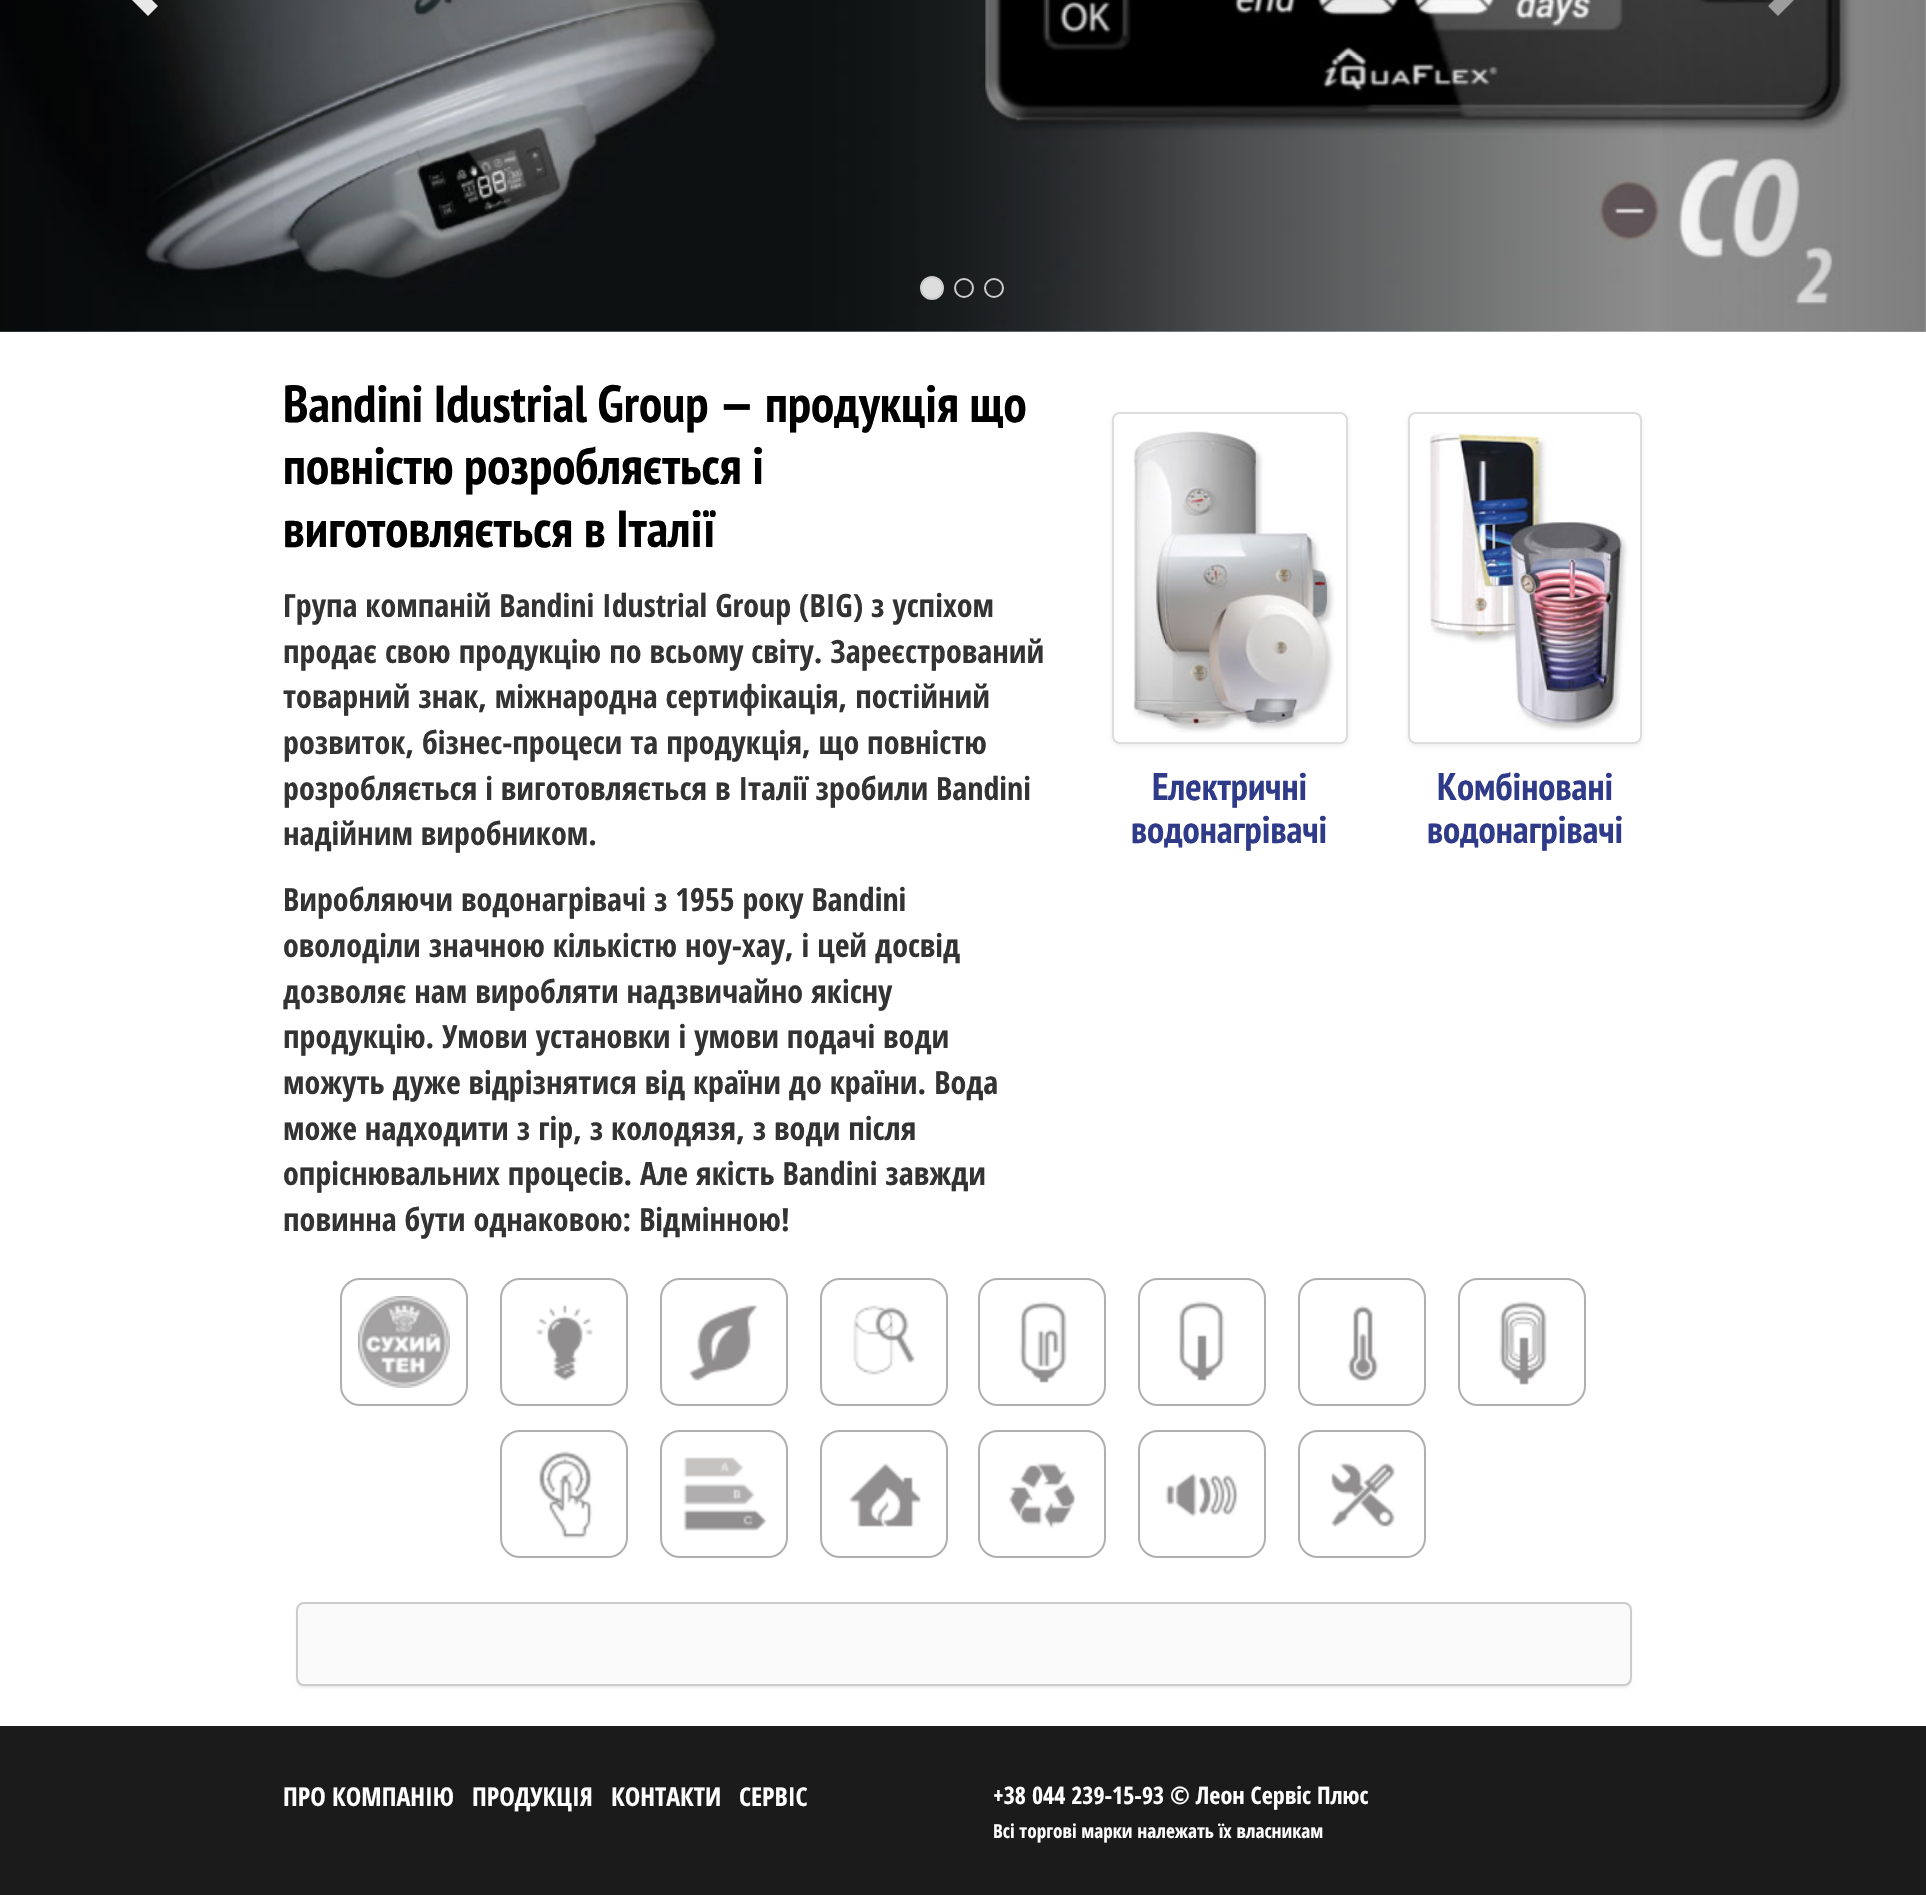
#include "include/core/SkBlurTypes.h"
#include "include/core/SkCanvas.h"
#include "include/core/SkData.h"
#include "include/core/SkFont.h"
#include "include/core/SkFontMgr.h"
#include "include/core/SkImage.h"
#include "include/core/SkMaskFilter.h"
#include "include/core/SkPaint.h"
#include "include/core/SkPathBuilder.h"
#include "include/core/SkTextBlob.h"
#include "include/effects/SkDashPathEffect.h"
#include "include/effects/SkGradientShader.h"
#include "include/utils/SkParsePath.h"

extern sk_sp<SkFontMgr> fontMgr;

static SkFont font(const char* family, int weight, float size, bool italic = false) {
    SkFontStyle style(weight, SkFontStyle::kNormal_Width,
        italic ? SkFontStyle::kItalic_Slant : SkFontStyle::kUpright_Slant);
    SkFont result(fontMgr->matchFamilyStyle(family, style), size);
    result.setSubpixel(true);
    return result;
}

static void drawLabel(SkCanvas* canvas, const char* s, float x, float y, const SkFont& font, SkColor color) {
    SkPaint ink(SkColor4f::FromColor(color));
    ink.setAntiAlias(true);
    canvas->drawString(s, x, y, font, ink);
}

static void fillRect(SkCanvas* canvas, float x, float y, float w, float h, SkColor color) {
    SkPaint ink(SkColor4f::FromColor(color));
    ink.setAntiAlias(true);
    canvas->drawRect(SkRect::MakeXYWH(x, y, w, h), ink);
}

static void drawPhoto(SkCanvas* canvas, const char* path, float x, float y, float w, float h) {
    auto image = SkImages::DeferredFromEncodedData(SkData::MakeFromFileName(path));
    canvas->drawImageRect(image, SkRect::MakeXYWH(x, y, w, h), SkSamplingOptions());
}

static SkPath parsePath(const char* data, bool evenOdd = false) {
    SkPath result = *SkParsePath::FromSVGString(data);
    if (evenOdd) result.setFillType(SkPathFillType::kEvenOdd);
    return result;
}

void draw(SkCanvas* canvas) {
    SkPaint paint;
    paint.setAntiAlias(true);
    canvas->clear(0xFFFFFFFF);
    drawPhoto(canvas, "assets/img1.png", 0, 0, 1926, 332);
    {
        const SkColor colors[] = {0x73000000, 0x00000000};
        const float stops[] = {0, 1};
        const SkPoint ends[] = {{0, -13}, {288, -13}};
        paint.setShader(SkGradientShader::MakeLinear(ends, colors, stops, 2, SkTileMode::kClamp));
        paint.setAlpha(255);
    }
    canvas->drawRect(SkRect::MakeXYWH(0, 0, 274, 332), paint);
    paint.setShader(nullptr);
    paint.setColor(0xE6FFFFFF);
    canvas->drawPath(parsePath("M158-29L141-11L158 6L148 16L121-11L148-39Z"), paint);
    paint.setColor(0xFFDDDDDD);
    canvas->drawCircle(932, 288, 11, paint);
    paint.setStroke(true);
    paint.setStrokeWidth(2);
    paint.setColor(0xFFCCCCCC);
    canvas->drawCircle(932, 288, 11, paint);
    canvas->drawCircle(964, 288, 9, paint);
    canvas->drawCircle(994, 288, 9, paint);
    paint.setStroke(false);
    {
        const SkColor colors[] = {0x00000000, 0x40000000};
        const float stops[] = {0, 1};
        const SkPoint ends[] = {{1638, -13}, {1926, -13}};
        paint.setShader(SkGradientShader::MakeLinear(ends, colors, stops, 2, SkTileMode::kClamp));
        paint.setAlpha(255);
    }
    canvas->drawRect(SkRect::MakeXYWH(1663, 0, 263, 332), paint);
    paint.setShader(nullptr);
    paint.setColor(0x80FFFFFF);
    canvas->drawPath(parsePath("M1805-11L1778 16L1768 6L1785-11L1768-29L1778-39Z"), paint);
    SkFont font1 = font("PT Sans Narrow", 700, 52);
    drawLabel(canvas, "Bandini Idustrial Group — продукція що", 283, 422, font1, 0xFF000000);
    drawLabel(canvas, "повністю розробляється і", 283, 484, font1, 0xFF000000);
    drawLabel(canvas, "виготовляється в Італії", 283, 547, font1, 0xFF000000);
    SkFont font2 = font("Open Sans Condensed", 700, 32);
    drawLabel(canvas, "Група компаній Bandini Idustrial Group (BIG) з успіхом", 283, 617, font2, 0xFF333333);
    drawLabel(canvas, "продає свою продукцію по всьому світу. Зареєстрований", 283, 663, font2, 0xFF333333);
    drawLabel(canvas, "товарний знак, міжнародна сертифікація, постійний", 283, 708, font2, 0xFF333333);
    drawLabel(canvas, "розвиток, бізнес-процеси та продукція, що повністю", 283, 754, font2, 0xFF333333);
    drawLabel(canvas, "розробляється і виготовляється в Італії зробили Bandini", 283, 800, font2, 0xFF333333);
    drawLabel(canvas, "надійним виробником.", 283, 845, font2, 0xFF333333);
    drawLabel(canvas, "Виробляючи водонагрівачі з 1955 року Bandini", 283, 911, font2, 0xFF333333);
    drawLabel(canvas, "оволоділи значною кількістю ноу-хау, і цей досвід", 283, 957, font2, 0xFF333333);
    drawLabel(canvas, "дозволяє нам виробляти надзвичайно якісну", 283, 1003, font2, 0xFF333333);
    drawLabel(canvas, "продукцію. Умови установки і умови подачі води", 283, 1048, font2, 0xFF333333);
    drawLabel(canvas, "можуть дуже відрізнятися від країни до країни. Вода", 283, 1094, font2, 0xFF333333);
    drawLabel(canvas, "може надходити з гір, з колодязя, з води після", 283, 1140, font2, 0xFF333333);
    drawLabel(canvas, "опріснювальних процесів. Але якість Bandini завжди", 283, 1185, font2, 0xFF333333);
    drawLabel(canvas, "повинна бути однаковою: Відмінною!", 283, 1231, font2, 0xFF333333);
    paint.setColor(0x12000000);
    paint.setMaskFilter(SkMaskFilter::MakeBlur(kNormal_SkBlurStyle, 2));
    canvas->drawRoundRect(SkRect::MakeXYWH(1112, 414, 236, 332), 8, 8, paint);
    paint.setMaskFilter(nullptr);
    paint.setColor(0xFFFFFFFF);
    canvas->drawRoundRect(SkRect::MakeXYWH(1113, 413, 234, 330), 7, 7, paint);
    paint.setStroke(true);
    paint.setColor(0xFFDDDDDD);
    canvas->drawRoundRect(SkRect::MakeXYWH(1113, 413, 234, 330), 7, 7, paint);
    drawPhoto(canvas, "assets/img2.png", 1132, 431, 203, 302);
    SkFont font3 = font("PT Sans Narrow", 700, 38.5f);
    drawLabel(canvas, "Електричні", 1152, 800, font3, 0xFF2F3A89);
    drawLabel(canvas, "водонагрівачі", 1131, 843, font3, 0xFF2F3A89);
    paint.setStroke(false);
    paint.setColor(0x12000000);
    paint.setMaskFilter(SkMaskFilter::MakeBlur(kNormal_SkBlurStyle, 2));
    canvas->drawRoundRect(SkRect::MakeXYWH(1408, 414, 234, 332), 8, 8, paint);
    paint.setMaskFilter(nullptr);
    paint.setColor(0xFFFFFFFF);
    canvas->drawRoundRect(SkRect::MakeXYWH(1409, 413, 232, 330), 7, 7, paint);
    paint.setStroke(true);
    paint.setColor(0xFFDDDDDD);
    canvas->drawRoundRect(SkRect::MakeXYWH(1409, 413, 232, 330), 7, 7, paint);
    drawPhoto(canvas, "assets/img3.png", 1428, 432, 200, 300);
    drawLabel(canvas, "Комбіновані", 1437, 800, font3, 0xFF2F3A89);
    drawLabel(canvas, "водонагрівачі", 1427, 843, font3, 0xFF2F3A89);
    paint.setColor(0xFFB1AEAF);
    canvas->drawRoundRect(SkRect::MakeXYWH(341, 1279, 126, 126), 19, 19, paint);
    drawPhoto(canvas, "assets/img4.png", 358, 1296, 92, 92);
    canvas->drawRoundRect(SkRect::MakeXYWH(501, 1279, 126, 126), 19, 19, paint);
    drawPhoto(canvas, "assets/img5.png", 536, 1304, 57, 77);
    canvas->drawRoundRect(SkRect::MakeXYWH(661, 1279, 126, 126), 19, 19, paint);
    drawPhoto(canvas, "assets/img6.png", 689, 1305, 69, 76);
    canvas->drawRoundRect(SkRect::MakeXYWH(821, 1279, 126, 126), 19, 19, paint);
    drawPhoto(canvas, "assets/img7.png", 853, 1305, 62, 70);
    canvas->drawRoundRect(SkRect::MakeXYWH(979, 1279, 126, 126), 19, 19, paint);
    drawPhoto(canvas, "assets/img8.png", 1019, 1301, 48, 82);
    canvas->drawRoundRect(SkRect::MakeXYWH(1139, 1279, 126, 126), 19, 19, paint);
    drawPhoto(canvas, "assets/img9.png", 1179, 1301, 46, 80);
    canvas->drawRoundRect(SkRect::MakeXYWH(1299, 1279, 126, 126), 19, 19, paint);
    drawPhoto(canvas, "assets/img10.png", 1347, 1305, 32, 76);
    canvas->drawRoundRect(SkRect::MakeXYWH(1459, 1279, 126, 126), 19, 19, paint);
    drawPhoto(canvas, "assets/img11.png", 1499, 1301, 48, 84);
    canvas->drawRoundRect(SkRect::MakeXYWH(501, 1431, 126, 126), 19, 19, paint);
    drawPhoto(canvas, "assets/img12.png", 539, 1451, 54, 88);
    canvas->drawRoundRect(SkRect::MakeXYWH(661, 1431, 126, 126), 19, 19, paint);
    drawPhoto(canvas, "assets/img13.png", 683, 1457, 84, 74);
    canvas->drawRoundRect(SkRect::MakeXYWH(821, 1431, 126, 126), 19, 19, paint);
    drawPhoto(canvas, "assets/img14.png", 849, 1463, 72, 64);
    canvas->drawRoundRect(SkRect::MakeXYWH(979, 1431, 126, 126), 19, 19, paint);
    drawPhoto(canvas, "assets/img15.png", 1009, 1463, 67, 66);
    canvas->drawRoundRect(SkRect::MakeXYWH(1139, 1431, 126, 126), 19, 19, paint);
    drawPhoto(canvas, "assets/img16.png", 1165, 1473, 74, 44);
    canvas->drawRoundRect(SkRect::MakeXYWH(1299, 1431, 126, 126), 19, 19, paint);
    drawPhoto(canvas, "assets/img17.png", 1331, 1463, 64, 64);
    paint.setStroke(false);
    paint.setColor(0x12000000);
    paint.setMaskFilter(SkMaskFilter::MakeBlur(kNormal_SkBlurStyle, 1));
    canvas->drawRoundRect(SkRect::MakeXYWH(296, 1604, 1336, 84), 8, 8, paint);
    paint.setMaskFilter(nullptr);
    paint.setColor(0xFFFAFAFA);
    canvas->drawRoundRect(SkRect::MakeXYWH(297, 1603, 1334, 82), 7, 7, paint);
    paint.setStroke(true);
    paint.setColor(0xFFCCCCCC);
    canvas->drawRoundRect(SkRect::MakeXYWH(297, 1603, 1334, 82), 7, 7, paint);
    fillRect(canvas, 0, 1726, 1926, 169, 0xFF1B1B1B);
    SkFont font4 = font("Open Sans Condensed", 700, 26);
    drawLabel(canvas, "ПРО КОМПАНІЮ", 283, 1806, font4, 0xFFFFFFFF);
    drawLabel(canvas, "ПРОДУКЦІЯ", 472, 1806, font4, 0xFFFFFFFF);
    drawLabel(canvas, "КОНТАКТИ", 611, 1806, font4, 0xFFFFFFFF);
    drawLabel(canvas, "СЕРВІС", 739, 1806, font4, 0xFFFFFFFF);
    SkFont font5 = font("Open Sans Condensed", 700, 24);
    drawLabel(canvas, "+38 044 239-15-93 © Леон Сервіс Плюс", 993, 1804, font5, 0xFFFFFFFF);
    SkFont font6 = font("Open Sans Condensed", 700, 19.25f);
    drawLabel(canvas, "Всі торгові марки належать їх власникам", 993, 1838, font6, 0xFFFFFFFF);
}
